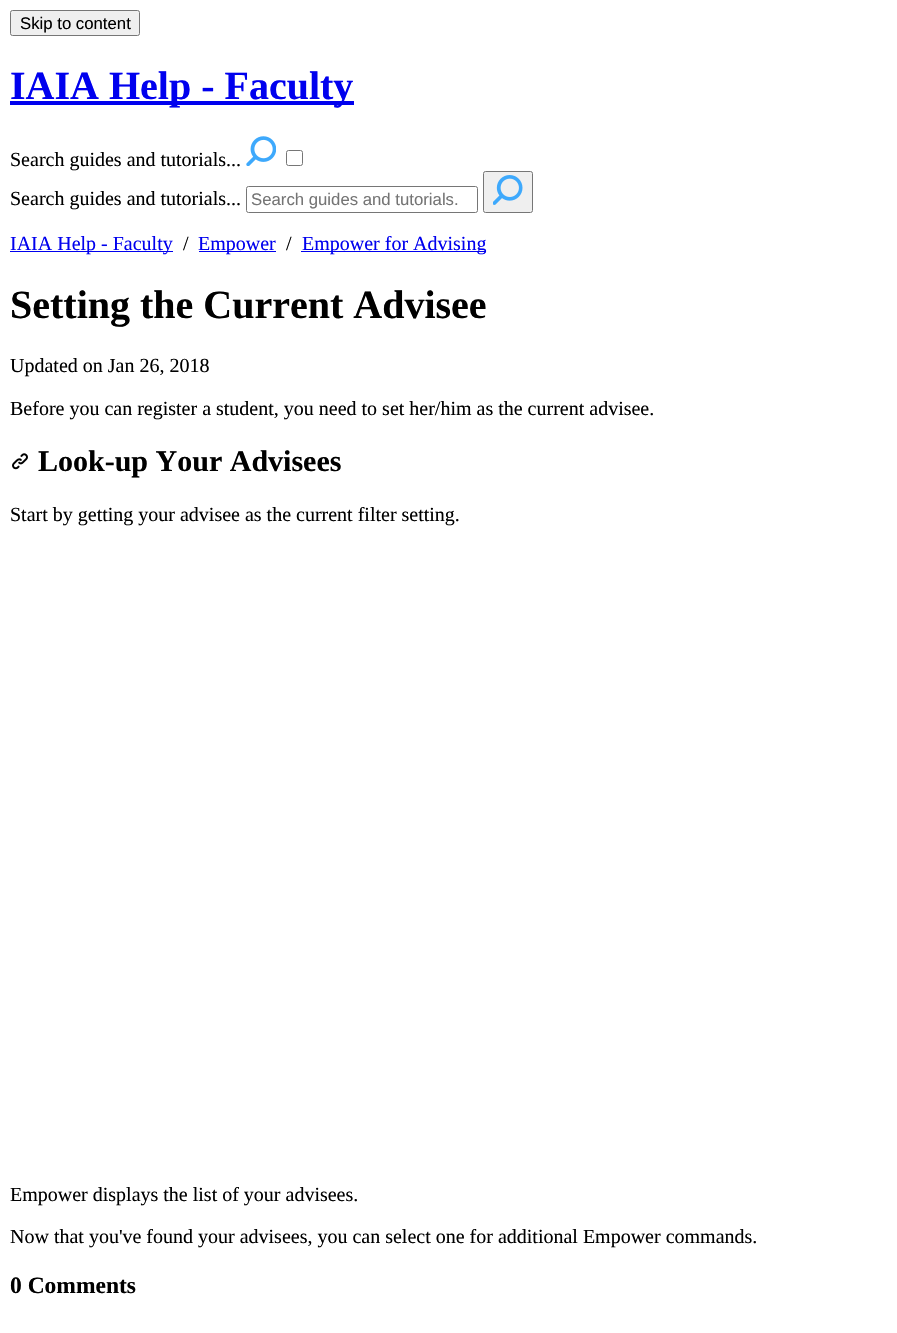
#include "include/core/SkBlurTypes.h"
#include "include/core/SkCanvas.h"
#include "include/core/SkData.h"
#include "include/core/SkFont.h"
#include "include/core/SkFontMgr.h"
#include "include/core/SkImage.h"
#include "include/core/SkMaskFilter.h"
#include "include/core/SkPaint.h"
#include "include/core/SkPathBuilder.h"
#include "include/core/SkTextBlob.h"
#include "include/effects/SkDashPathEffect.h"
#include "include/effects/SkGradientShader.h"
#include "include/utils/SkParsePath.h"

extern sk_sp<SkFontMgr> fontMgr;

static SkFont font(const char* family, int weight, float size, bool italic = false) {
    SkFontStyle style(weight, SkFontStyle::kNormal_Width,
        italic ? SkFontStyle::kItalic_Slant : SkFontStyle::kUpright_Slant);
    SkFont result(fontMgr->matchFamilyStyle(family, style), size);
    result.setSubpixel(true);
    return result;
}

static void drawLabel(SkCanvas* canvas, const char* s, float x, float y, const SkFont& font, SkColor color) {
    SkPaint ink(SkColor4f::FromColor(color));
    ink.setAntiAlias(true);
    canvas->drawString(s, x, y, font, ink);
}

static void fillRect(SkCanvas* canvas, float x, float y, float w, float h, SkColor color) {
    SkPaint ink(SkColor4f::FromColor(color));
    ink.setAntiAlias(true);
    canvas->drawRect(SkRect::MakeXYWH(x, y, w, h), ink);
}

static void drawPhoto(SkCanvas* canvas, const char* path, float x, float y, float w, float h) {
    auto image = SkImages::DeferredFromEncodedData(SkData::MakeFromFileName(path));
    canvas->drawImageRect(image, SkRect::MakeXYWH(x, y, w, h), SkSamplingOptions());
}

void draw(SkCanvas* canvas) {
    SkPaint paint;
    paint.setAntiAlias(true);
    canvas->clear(0xFFFFFFFF);
    paint.setColor(0xFFEFEFEF);
    canvas->drawRoundRect(SkRect::MakeXYWH(10.5f, 10.5f, 129, 25), 2, 2, paint);
    paint.setStroke(true);
    paint.setStrokeWidth(1);
    paint.setColor(0xFF767676);
    canvas->drawRoundRect(SkRect::MakeXYWH(10.5f, 10.5f, 129, 25), 2, 2, paint);
    SkFont font1 = font("Liberation Sans", 400, 16.75f);
    drawLabel(canvas, "Skip to content", 20, 29, font1, 0xFF000000);
    fillRect(canvas, 10, 101, 344, 4, 0xFF0000EE);
    SkFont font2 = font("Liberation Serif", 700, 40);
    drawLabel(canvas, "IAIA Help - Faculty", 10, 99, font2, 0xFF0000EE);
    SkFont font3 = font("Liberation Serif", 400, 20);
    drawLabel(canvas, "Search guides and tutorials...", 10, 166, font3, 0xFF000000);
    drawPhoto(canvas, "assets/img1.png", 246, 136, 30, 30);
    canvas->drawRoundRect(SkRect::MakeXYWH(286.5f, 150.5f, 16, 15), 2, 2, paint);
    drawLabel(canvas, "Search guides and tutorials...", 10, 205, font3, 0xFF000000);
    canvas->drawRoundRect(SkRect::MakeXYWH(246.5f, 186.5f, 231, 26), 2, 2, paint);
    drawLabel(canvas, "Search guides and tutorials.", 251, 205, font1, 0xFF757575);
    paint.setStroke(false);
    paint.setColor(0xFFEFEFEF);
    canvas->drawRoundRect(SkRect::MakeXYWH(483.5f, 171.5f, 49, 41), 2, 2, paint);
    paint.setStroke(true);
    paint.setColor(0xFF767676);
    canvas->drawRoundRect(SkRect::MakeXYWH(483.5f, 171.5f, 49, 41), 2, 2, paint);
    drawPhoto(canvas, "assets/img2.png", 493, 175, 30, 30);
    fillRect(canvas, 10, 251, 163, 1, 0xFF0000EE);
    drawLabel(canvas, "IAIA Help - Faculty", 10, 250, font3, 0xFF0000EE);
    drawLabel(canvas, "/", 183, 250, font3, 0xFF000000);
    fillRect(canvas, 199, 251, 77, 1, 0xFF0000EE);
    drawLabel(canvas, "Empower", 198, 250, font3, 0xFF0000EE);
    drawLabel(canvas, "/", 286, 250, font3, 0xFF000000);
    fillRect(canvas, 301, 251, 185, 1, 0xFF0000EE);
    drawLabel(canvas, "Empower for Advising", 302, 250, font3, 0xFF0000EE);
    drawLabel(canvas, "Setting the Current Advisee", 10, 318, font2, 0xFF000000);
    drawLabel(canvas, "Updated on Jan 26, 2018", 10, 372, font3, 0xFF000000);
    drawLabel(canvas, "Before you can register a student, you need to set her/him as the current advisee.", 10, 415, font3, 0xFF000000);
    drawPhoto(canvas, "assets/img3.png", 12, 453, 16, 17);
    SkFont font4 = font("Liberation Serif", 700, 30);
    drawLabel(canvas, "Look-up Your Advisees", 38, 471, font4, 0xFF000000);
    drawLabel(canvas, "Start by getting your advisee as the current filter setting.", 10, 521, font3, 0xFF000000);
    drawLabel(canvas, "Empower displays the list of your advisees.", 10, 1201, font3, 0xFF000000);
    drawLabel(canvas, "Now that you've found your advisees, you can select one for additional Empower commands.", 10, 1243, font3, 0xFF000000);
    SkFont font5 = font("Liberation Serif", 700, 23.5f);
    drawLabel(canvas, "0 Comments", 10, 1293, font5, 0xFF000000);
}
